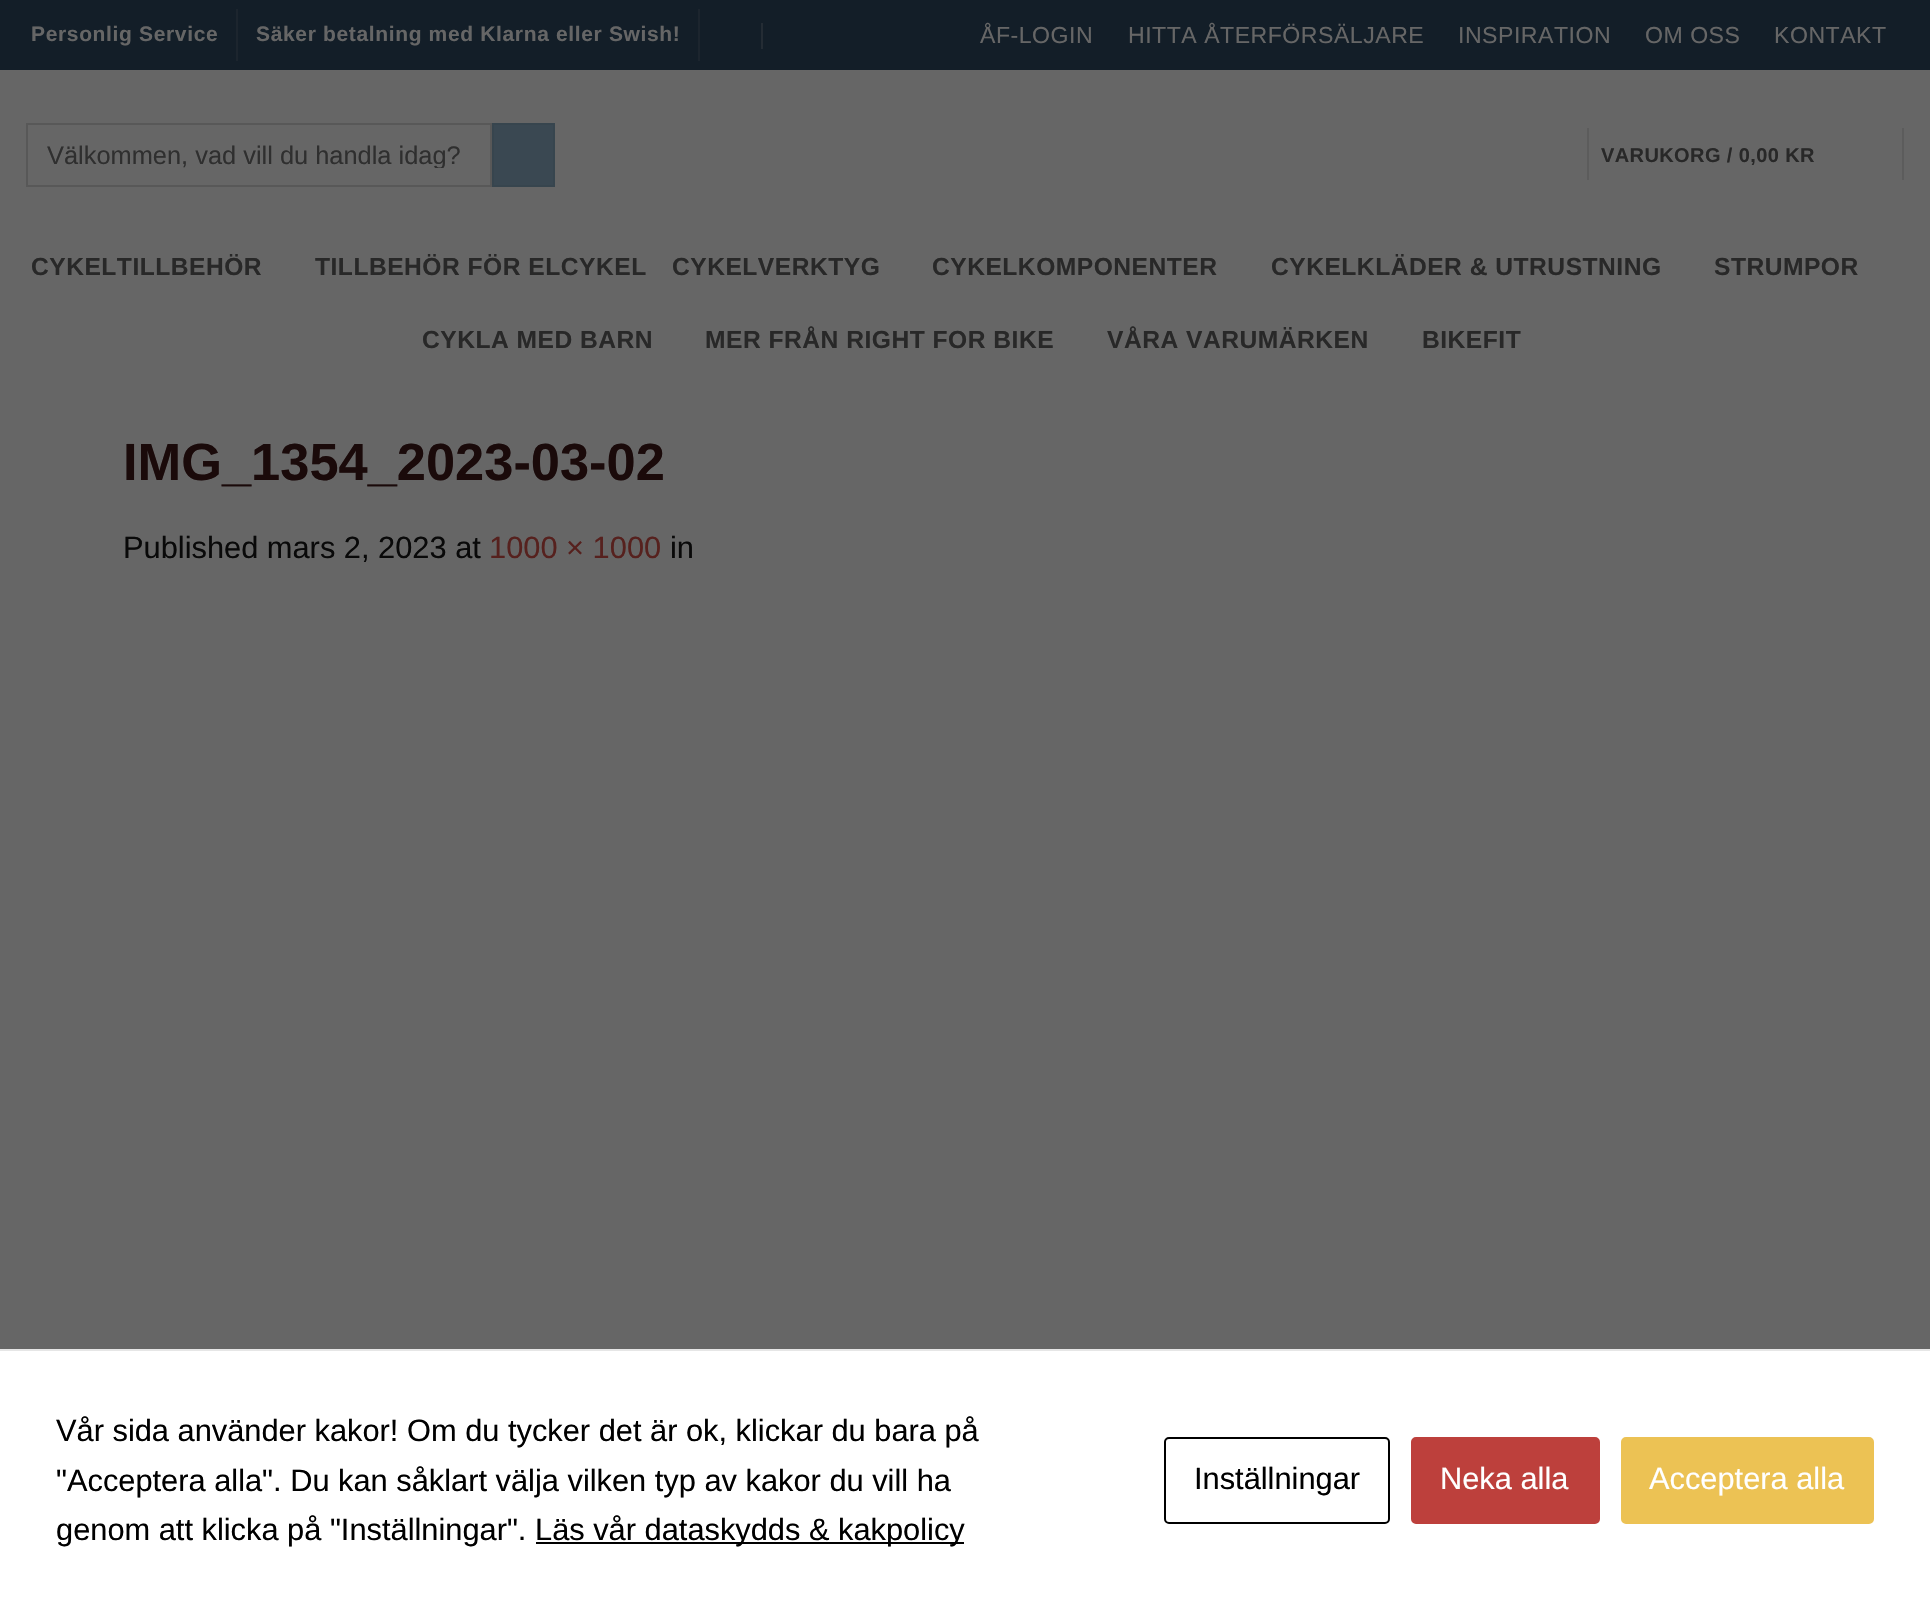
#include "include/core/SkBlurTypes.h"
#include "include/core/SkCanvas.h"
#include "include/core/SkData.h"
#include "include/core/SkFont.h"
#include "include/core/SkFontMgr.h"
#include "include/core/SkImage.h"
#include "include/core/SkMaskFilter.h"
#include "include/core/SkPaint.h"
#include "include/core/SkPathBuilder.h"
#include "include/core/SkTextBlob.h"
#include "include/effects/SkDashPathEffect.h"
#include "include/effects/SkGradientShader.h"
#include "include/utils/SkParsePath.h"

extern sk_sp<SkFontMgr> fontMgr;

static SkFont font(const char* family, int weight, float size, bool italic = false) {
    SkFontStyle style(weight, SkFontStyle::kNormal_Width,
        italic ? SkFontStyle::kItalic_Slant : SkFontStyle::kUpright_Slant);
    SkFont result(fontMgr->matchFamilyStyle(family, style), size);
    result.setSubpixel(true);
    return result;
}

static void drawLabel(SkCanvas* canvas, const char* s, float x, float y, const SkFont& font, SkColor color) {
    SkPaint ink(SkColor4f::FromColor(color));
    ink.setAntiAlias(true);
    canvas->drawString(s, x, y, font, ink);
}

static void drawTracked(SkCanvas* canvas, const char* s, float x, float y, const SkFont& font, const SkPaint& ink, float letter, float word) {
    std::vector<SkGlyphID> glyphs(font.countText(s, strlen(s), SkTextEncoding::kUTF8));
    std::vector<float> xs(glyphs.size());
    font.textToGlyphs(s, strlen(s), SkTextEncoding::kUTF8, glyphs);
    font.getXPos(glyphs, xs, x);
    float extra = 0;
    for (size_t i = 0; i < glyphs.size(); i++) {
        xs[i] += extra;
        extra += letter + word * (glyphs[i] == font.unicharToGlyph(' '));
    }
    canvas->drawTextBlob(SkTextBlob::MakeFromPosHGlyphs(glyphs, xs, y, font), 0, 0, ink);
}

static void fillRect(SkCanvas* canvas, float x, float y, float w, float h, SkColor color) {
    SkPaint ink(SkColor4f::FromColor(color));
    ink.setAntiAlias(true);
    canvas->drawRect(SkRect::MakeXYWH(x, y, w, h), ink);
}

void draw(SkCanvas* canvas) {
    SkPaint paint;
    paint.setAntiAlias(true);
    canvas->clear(0xFF666666);
    fillRect(canvas, 0, 0, 1930, 70, 0xFF131E28);
    SkFont font1 = font("Liberation Sans", 700, 21);
    paint.setColor(0xFF666666);
    drawTracked(canvas, "Personlig Service", 31, 41, font1, paint, 0.65f, 0);
    fillRect(canvas, 236, 9, 2, 52, 0xFF1C252E);
    drawTracked(canvas, "Säker betalning med Klarna eller Swish!", 256, 41, font1, paint, 0.65f, 0);
    fillRect(canvas, 698, 9, 2, 52, 0xFF1C252E);
    fillRect(canvas, 761, 23, 2, 26, 0xFF242C34);
    SkFont font2 = font("Liberation Sans", 400, 23.1f);
    drawTracked(canvas, "ÅF-LOGIN", 980, 43, font2, paint, 0.5f, 0);
    drawTracked(canvas, "HITTA ÅTERFÖRSÄLJARE", 1128, 43, font2, paint, 0.5f, 0);
    drawTracked(canvas, "INSPIRATION", 1458, 43, font2, paint, 0.5f, 0);
    drawTracked(canvas, "OM OSS", 1645, 43, font2, paint, 0.5f, 0);
    drawTracked(canvas, "KONTAKT", 1774, 43, font2, paint, 0.5f, 0);
    paint.setStroke(true);
    paint.setStrokeWidth(2);
    paint.setColor(0xFF585858);
    canvas->drawRect(SkRect::MakeXYWH(27, 124, 464, 62), paint);
    canvas->save();
    canvas->clipRect(SkRect::MakeXYWH(47, 140, 417, 28));
    SkFont font3 = font("Liberation Sans", 400, 25.4f);
    drawLabel(canvas, "Välkommen, vad vill du handla idag?", 47, 164, font3, 0xFF2F2F2F);
    canvas->restore();
    paint.setStroke(false);
    paint.setColor(0xFF3A4852);
    canvas->drawRect(SkRect::MakeXYWH(493, 124, 61, 62), paint);
    paint.setStroke(true);
    paint.setColor(0xFF37454E);
    canvas->drawRect(SkRect::MakeXYWH(493, 124, 61, 62), paint);
    fillRect(canvas, 1587, 128, 2, 52, 0xFF5C5C5C);
    SkFont font4 = font("Liberation Sans", 700, 20);
    paint.setStroke(false);
    paint.setColor(0xFF282828);
    drawTracked(canvas, "VARUKORG / 0,00 KR", 1601, 162, font4, paint, 0.4f, 0);
    fillRect(canvas, 1902, 128, 2, 52, 0xFF5C5C5C);
    SkFont font5 = font("Liberation Sans", 700, 24.6f);
    drawTracked(canvas, "CYKELTILLBEHÖR", 31, 275, font5, paint, 0.5f, 0);
    drawTracked(canvas, "TILLBEHÖR FÖR ELCYKEL", 315, 275, font5, paint, 0.5f, 0);
    drawTracked(canvas, "CYKELVERKTYG", 672, 275, font5, paint, 0.5f, 0);
    drawTracked(canvas, "CYKELKOMPONENTER", 932, 275, font5, paint, 0.5f, 0);
    drawTracked(canvas, "CYKELKLÄDER & UTRUSTNING", 1271, 275, font5, paint, 0.5f, 0);
    drawTracked(canvas, "STRUMPOR", 1714, 275, font5, paint, 0.5f, 0);
    drawTracked(canvas, "CYKLA MED BARN", 422, 348, font5, paint, 0.5f, 0);
    drawTracked(canvas, "MER FRÅN RIGHT FOR BIKE", 705, 348, font5, paint, 0.5f, 0);
    drawTracked(canvas, "VÅRA VARUMÄRKEN", 1107, 348, font5, paint, 0.5f, 0);
    drawTracked(canvas, "BIKEFIT", 1422, 348, font5, paint, 0.5f, 0);
    SkFont font6 = font("Liberation Sans", 700, 52.4f);
    drawLabel(canvas, "IMG_1354_2023-03-02", 123, 480, font6, 0xFF1A0A0A);
    SkFont font7 = font("Liberation Sans", 400, 30.8f);
    drawLabel(canvas, "Published mars 2, 2023 at", 123, 558, font7, 0xFF090909);
    drawLabel(canvas, "1000 × 1000", 489, 558, font7, 0xFF56211E);
    drawLabel(canvas, "in", 670, 558, font7, 0xFF090909);
    fillRect(canvas, 0, 1351, 1930, 258, 0xFFFFFFFF);
    fillRect(canvas, 0, 1349, 1930, 2, 0xFFE6E6E6);
    drawLabel(canvas, "Vår sida använder kakor! Om du tycker det är ok, klickar du bara på", 56, 1441, font7, 0xFF000000);
    drawLabel(canvas, "\"Acceptera alla\". Du kan såklart välja vilken typ av kakor du vill ha", 56, 1491, font7, 0xFF000000);
    drawLabel(canvas, "genom att klicka på \"Inställningar\".", 56, 1540, font7, 0xFF000000);
    fillRect(canvas, 536, 1542, 428, 2, 0xFF000000);
    drawLabel(canvas, "Läs vår dataskydds & kakpolicy", 535, 1540, font7, 0xFF000000);
    paint.setStroke(true);
    paint.setColor(0xFF000000);
    canvas->drawRoundRect(SkRect::MakeXYWH(1165, 1438, 224, 85), 4, 4, paint);
    drawLabel(canvas, "Inställningar", 1194, 1489, font7, 0xFF000000);
    paint.setStroke(false);
    paint.setColor(0xFFBD403C);
    canvas->drawRoundRect(SkRect::MakeXYWH(1412, 1438, 187, 85), 4, 4, paint);
    paint.setStroke(true);
    canvas->drawRoundRect(SkRect::MakeXYWH(1412, 1438, 187, 85), 4, 4, paint);
    drawLabel(canvas, "Neka alla", 1440, 1489, font7, 0xFFFFFFFF);
    paint.setStroke(false);
    paint.setColor(0xFFECC254);
    canvas->drawRoundRect(SkRect::MakeXYWH(1622, 1438, 251, 85), 4, 4, paint);
    paint.setStroke(true);
    canvas->drawRoundRect(SkRect::MakeXYWH(1622, 1438, 251, 85), 4, 4, paint);
    drawLabel(canvas, "Acceptera alla", 1649, 1489, font7, 0xFFFFFFFF);
}
